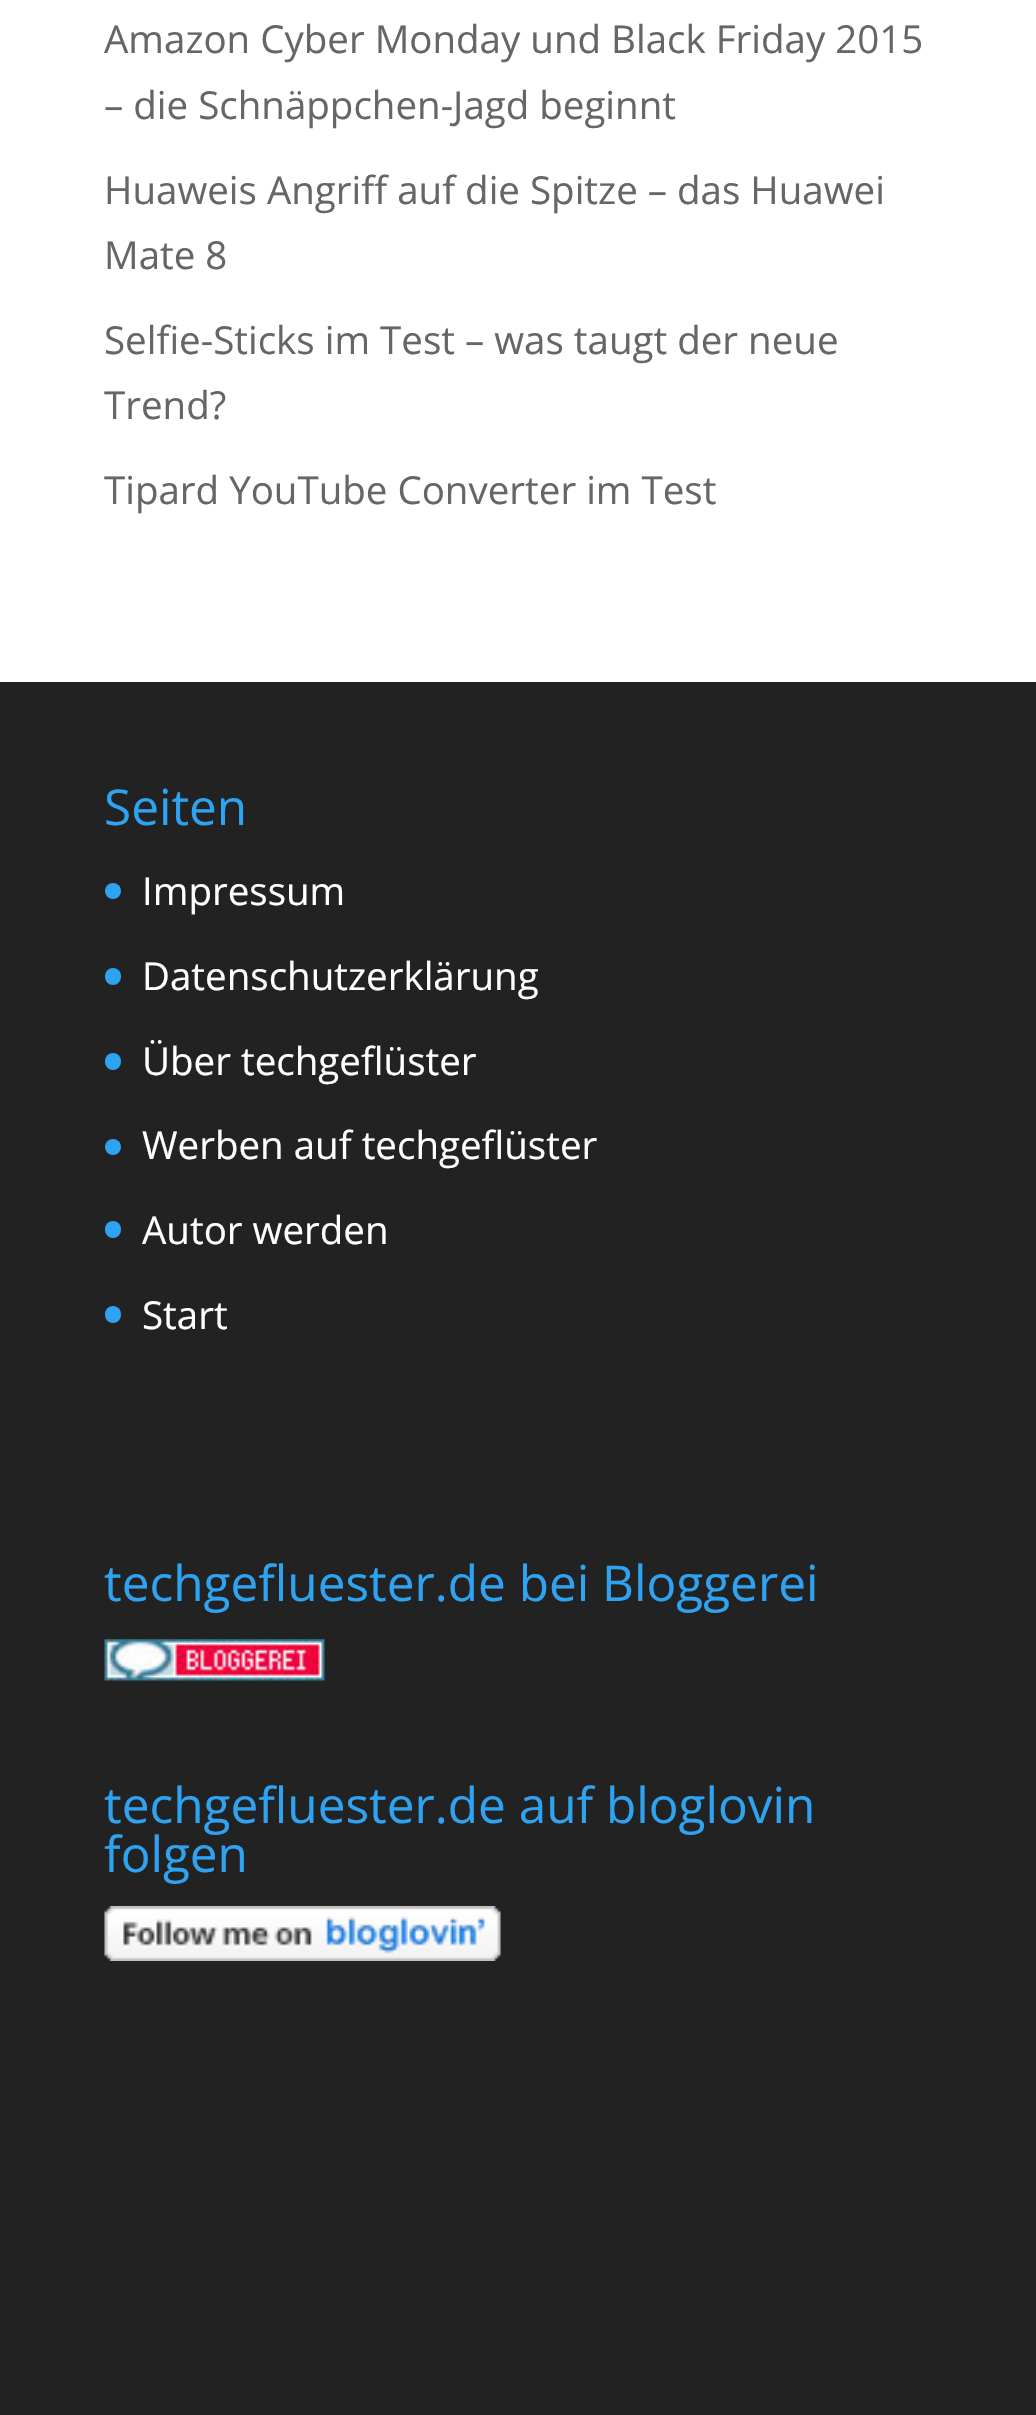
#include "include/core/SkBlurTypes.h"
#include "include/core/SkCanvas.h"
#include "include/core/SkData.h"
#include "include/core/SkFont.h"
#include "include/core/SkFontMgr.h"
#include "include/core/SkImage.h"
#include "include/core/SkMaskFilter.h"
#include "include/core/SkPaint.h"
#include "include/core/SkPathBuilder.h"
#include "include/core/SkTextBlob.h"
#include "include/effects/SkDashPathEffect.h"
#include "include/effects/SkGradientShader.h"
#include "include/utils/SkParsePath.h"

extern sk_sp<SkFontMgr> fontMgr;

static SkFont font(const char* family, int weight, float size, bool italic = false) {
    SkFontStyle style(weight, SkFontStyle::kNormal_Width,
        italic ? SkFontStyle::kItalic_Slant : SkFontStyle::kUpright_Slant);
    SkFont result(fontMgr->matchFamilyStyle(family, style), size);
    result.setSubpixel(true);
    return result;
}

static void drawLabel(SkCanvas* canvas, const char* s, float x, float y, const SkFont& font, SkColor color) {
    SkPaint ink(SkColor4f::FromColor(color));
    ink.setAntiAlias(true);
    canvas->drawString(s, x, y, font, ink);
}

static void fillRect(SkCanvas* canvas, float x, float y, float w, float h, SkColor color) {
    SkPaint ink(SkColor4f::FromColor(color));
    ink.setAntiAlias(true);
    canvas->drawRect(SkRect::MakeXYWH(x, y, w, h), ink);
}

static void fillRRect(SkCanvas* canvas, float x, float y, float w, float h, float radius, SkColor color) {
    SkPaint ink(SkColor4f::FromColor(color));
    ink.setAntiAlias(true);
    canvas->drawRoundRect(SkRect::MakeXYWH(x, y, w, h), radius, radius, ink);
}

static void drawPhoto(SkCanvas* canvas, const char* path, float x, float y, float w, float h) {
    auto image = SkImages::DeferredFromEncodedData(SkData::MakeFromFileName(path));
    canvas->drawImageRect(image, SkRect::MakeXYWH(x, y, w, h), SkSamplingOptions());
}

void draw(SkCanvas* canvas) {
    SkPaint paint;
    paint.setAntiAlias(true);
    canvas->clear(0xFFFFFFFF);
    SkFont font1 = font("Open Sans", 400, 38.5f);
    drawLabel(canvas, "Amazon Cyber Monday und Black Friday 2015", 104, 53, font1, 0xFF666666);
    drawLabel(canvas, "– die Schnäppchen-Jagd beginnt", 104, 119, font1, 0xFF666666);
    drawLabel(canvas, "Huaweis Angriff auf die Spitze – das Huawei", 104, 204, font1, 0xFF666666);
    drawLabel(canvas, "Mate 8", 104, 269, font1, 0xFF666666);
    drawLabel(canvas, "Selfie-Sticks im Test – was taugt der neue", 104, 354, font1, 0xFF666666);
    drawLabel(canvas, "Trend?", 104, 419, font1, 0xFF666666);
    drawLabel(canvas, "Tipard YouTube Converter im Test", 104, 504, font1, 0xFF666666);
    fillRect(canvas, 0, 682, 1036, 1733, 0xFF222222);
    SkFont font2 = font("Open Sans", 400, 49.5f);
    drawLabel(canvas, "Seiten", 104, 825, font2, 0xFF2EA3F2);
    paint.setColor(0xFF2EA3F2);
    canvas->drawCircle(113, 891, 8, paint);
    drawLabel(canvas, "Impressum", 142, 905, font1, 0xFFFFFFFF);
    fillRRect(canvas, 105, 968, 16, 17, 8, 0xFF2EA3F2);
    drawLabel(canvas, "Datenschutzerklärung", 142, 990, font1, 0xFFFFFFFF);
    fillRRect(canvas, 105, 1053, 16, 17, 8, 0xFF2EA3F2);
    drawLabel(canvas, "Über techgeflüster", 142, 1075, font1, 0xFFFFFFFF);
    canvas->drawCircle(113, 1147, 8, paint);
    drawLabel(canvas, "Werben auf techgeflüster", 142, 1159, font1, 0xFFFFFFFF);
    fillRRect(canvas, 105, 1221, 16, 17, 8, 0xFF2EA3F2);
    drawLabel(canvas, "Autor werden", 142, 1244, font1, 0xFFFFFFFF);
    fillRRect(canvas, 105, 1306, 16, 17, 8, 0xFF2EA3F2);
    drawLabel(canvas, "Start", 142, 1329, font1, 0xFFFFFFFF);
    drawLabel(canvas, "techgefluester.de bei Bloggerei", 104, 1601, font2, 0xFF2EA3F2);
    drawPhoto(canvas, "assets/img1.png", 104, 1639, 221, 42);
    drawLabel(canvas, "techgefluester.de auf bloglovin", 104, 1823, font2, 0xFF2EA3F2);
    drawLabel(canvas, "folgen", 104, 1872, font2, 0xFF2EA3F2);
    drawPhoto(canvas, "assets/img2.png", 104, 1906, 397, 55);
}
